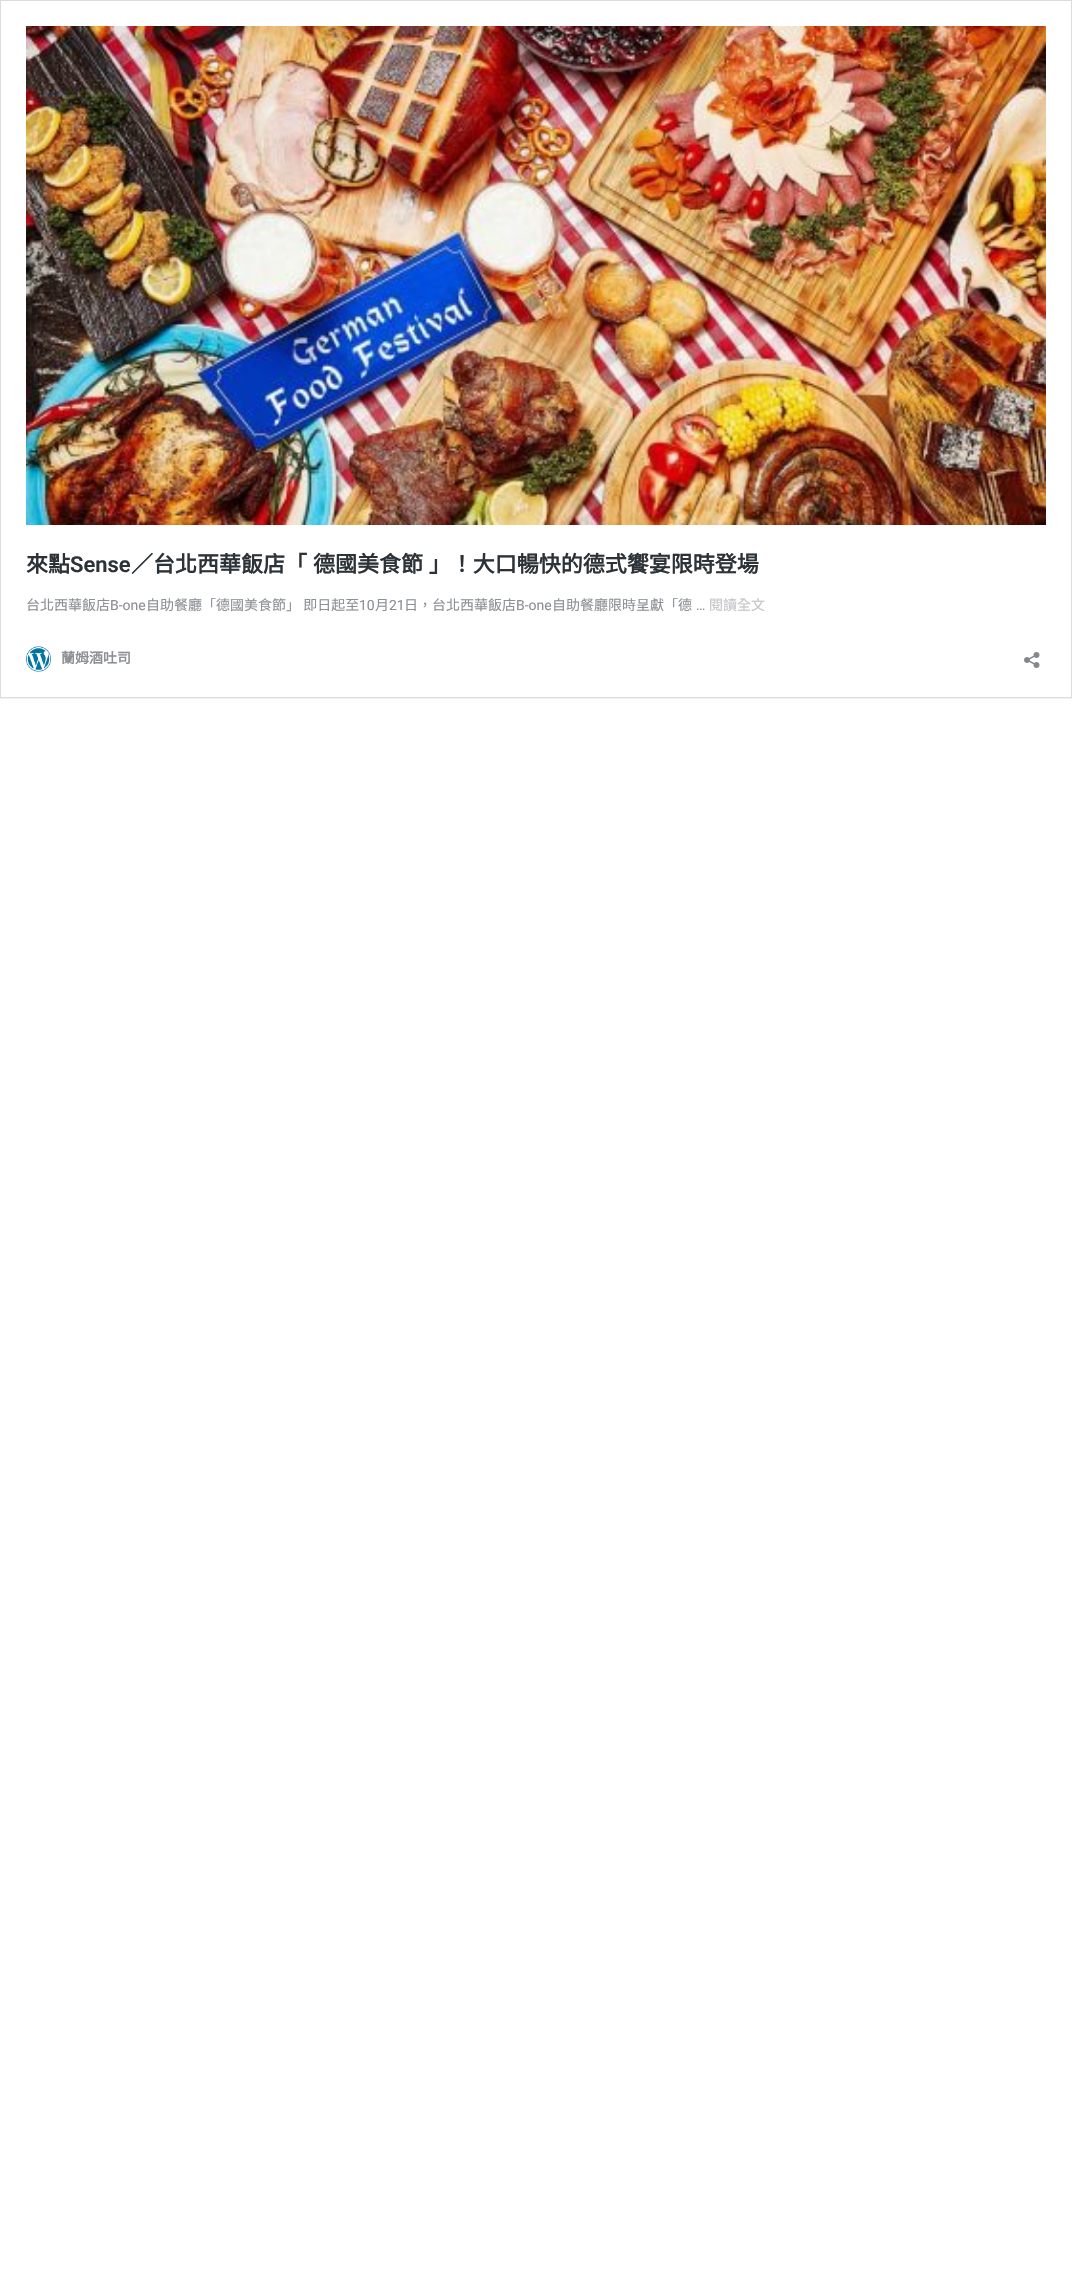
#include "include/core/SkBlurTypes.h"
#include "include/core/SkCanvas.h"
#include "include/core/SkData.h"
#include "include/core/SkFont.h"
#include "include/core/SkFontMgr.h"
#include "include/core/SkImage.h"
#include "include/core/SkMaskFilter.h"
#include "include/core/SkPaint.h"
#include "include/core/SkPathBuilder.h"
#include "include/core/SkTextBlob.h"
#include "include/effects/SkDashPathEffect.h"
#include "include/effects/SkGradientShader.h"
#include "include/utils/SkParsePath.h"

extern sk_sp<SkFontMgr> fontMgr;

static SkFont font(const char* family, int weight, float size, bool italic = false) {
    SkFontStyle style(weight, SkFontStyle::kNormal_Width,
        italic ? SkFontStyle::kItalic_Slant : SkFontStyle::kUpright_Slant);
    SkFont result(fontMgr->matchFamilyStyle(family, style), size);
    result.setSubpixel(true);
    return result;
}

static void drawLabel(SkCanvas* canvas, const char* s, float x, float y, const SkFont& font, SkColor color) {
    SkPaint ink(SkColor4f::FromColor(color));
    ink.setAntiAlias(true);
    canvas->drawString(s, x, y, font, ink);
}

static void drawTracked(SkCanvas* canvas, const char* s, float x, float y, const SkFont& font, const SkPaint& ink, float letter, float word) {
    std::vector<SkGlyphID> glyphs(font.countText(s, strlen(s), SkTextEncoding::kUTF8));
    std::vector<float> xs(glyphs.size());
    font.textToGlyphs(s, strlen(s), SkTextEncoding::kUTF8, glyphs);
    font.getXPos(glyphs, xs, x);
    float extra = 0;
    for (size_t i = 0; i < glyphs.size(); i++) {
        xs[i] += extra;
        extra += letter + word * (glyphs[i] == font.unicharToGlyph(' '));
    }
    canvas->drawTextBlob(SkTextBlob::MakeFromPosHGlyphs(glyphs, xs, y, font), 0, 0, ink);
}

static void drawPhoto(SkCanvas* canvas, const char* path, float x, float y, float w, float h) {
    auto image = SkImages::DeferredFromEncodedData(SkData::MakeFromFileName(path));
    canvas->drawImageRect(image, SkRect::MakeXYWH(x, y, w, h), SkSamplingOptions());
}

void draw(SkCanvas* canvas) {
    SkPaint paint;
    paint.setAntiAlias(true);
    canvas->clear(0xFFFFFFFF);
    canvas->save();
    canvas->clipRect(SkRect::MakeXYWH(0, 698, 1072, 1));
    paint.setColor(0x0D000000);
    paint.setMaskFilter(SkMaskFilter::MakeBlur(kNormal_SkBlurStyle, 0.5f));
    canvas->drawRect(SkRect::MakeXYWH(0, 1, 1072, 698), paint);
    paint.setMaskFilter(nullptr);
    canvas->restore();
    paint.setStroke(true);
    paint.setStrokeWidth(1);
    paint.setColor(0xFFDCDCDE);
    canvas->drawRect(SkRect::MakeXYWH(0.5f, 0.5f, 1071, 697), paint);
    drawPhoto(canvas, "assets/img1.png", 26, 26, 1020, 499);
    SkFont font1 = font("Noto Sans CJK TC", 700, 22);
    drawLabel(canvas, "來點", 26, 572, font1, 0xFF2C3338);
    SkFont font2 = font("Roboto", 600, 22);
    drawLabel(canvas, "Sense", 70, 572, font2, 0xFF2C3338);
    paint.setStroke(false);
    paint.setColor(0xFF2C3338);
    drawTracked(canvas, "／台北西華飯店「 德國美食節 」！大口暢快的德式饗宴限時登場", 131, 572, font1, paint, 0, 1);
    SkFont font3 = font("Noto Sans CJK TC", 400, 14);
    drawLabel(canvas, "台北西華飯店", 26, 610, font3, 0xFF8C8F94);
    SkFont font4 = font("Roboto", 400, 14);
    drawLabel(canvas, "B-one", 110, 610, font4, 0xFF8C8F94);
    drawLabel(canvas, "自助餐廳「德國美食節」 即日起至", 146, 610, font3, 0xFF8C8F94);
    drawLabel(canvas, "10", 359, 610, font4, 0xFF8C8F94);
    drawLabel(canvas, "月", 375, 610, font3, 0xFF8C8F94);
    drawLabel(canvas, "21", 389, 610, font4, 0xFF8C8F94);
    drawLabel(canvas, "日，台北西華飯店", 404, 610, font3, 0xFF8C8F94);
    drawLabel(canvas, "B-one", 516, 610, font4, 0xFF8C8F94);
    drawLabel(canvas, "自助餐廳限時呈獻「德", 552, 610, font3, 0xFF8C8F94);
    drawLabel(canvas, "…", 696, 610, font4, 0xFF8C8F94);
    drawLabel(canvas, "閱讀全文", 709, 610, font3, 0xFFC3C4C7);
    drawPhoto(canvas, "assets/img2.png", 26, 646, 25, 26);
    SkFont font5 = font("Noto Sans CJK TC", 700, 14);
    drawLabel(canvas, "蘭姆酒吐司", 61, 663, font5, 0xFF8C8F94);
    drawPhoto(canvas, "assets/img3.png", 1024, 652, 16, 16);
}
